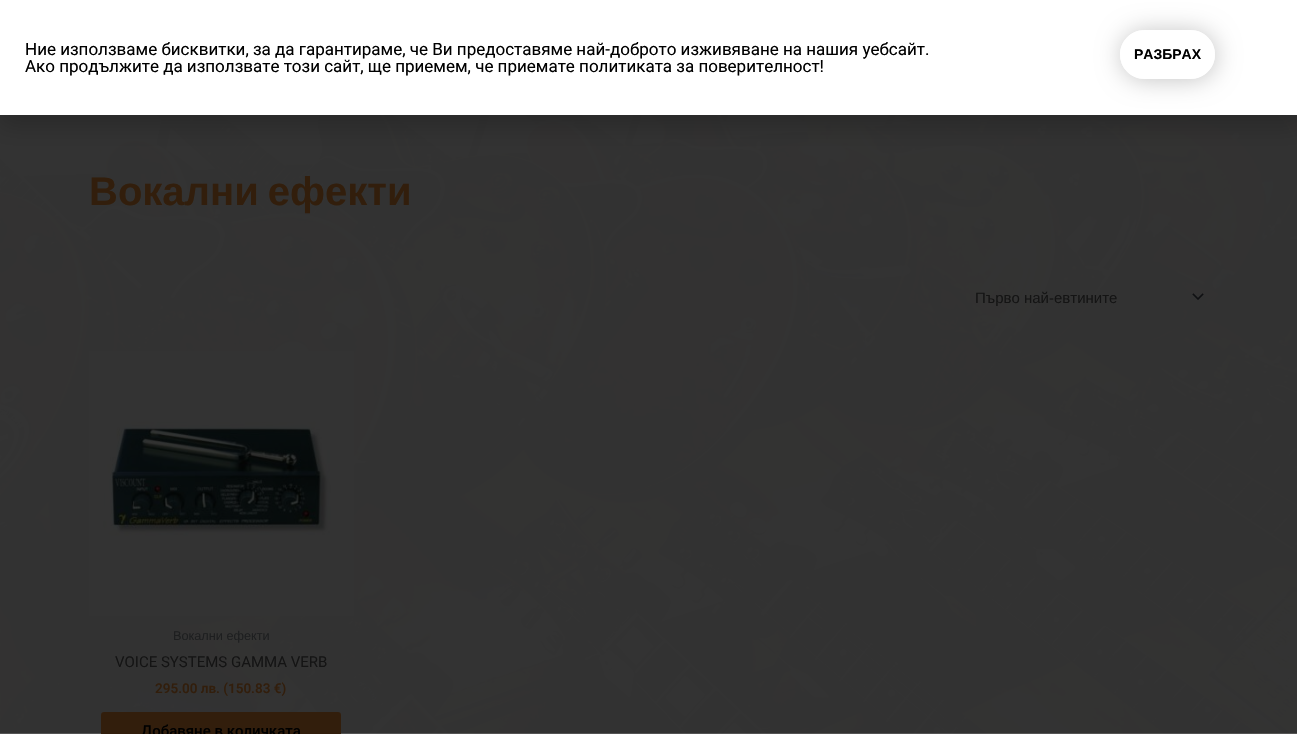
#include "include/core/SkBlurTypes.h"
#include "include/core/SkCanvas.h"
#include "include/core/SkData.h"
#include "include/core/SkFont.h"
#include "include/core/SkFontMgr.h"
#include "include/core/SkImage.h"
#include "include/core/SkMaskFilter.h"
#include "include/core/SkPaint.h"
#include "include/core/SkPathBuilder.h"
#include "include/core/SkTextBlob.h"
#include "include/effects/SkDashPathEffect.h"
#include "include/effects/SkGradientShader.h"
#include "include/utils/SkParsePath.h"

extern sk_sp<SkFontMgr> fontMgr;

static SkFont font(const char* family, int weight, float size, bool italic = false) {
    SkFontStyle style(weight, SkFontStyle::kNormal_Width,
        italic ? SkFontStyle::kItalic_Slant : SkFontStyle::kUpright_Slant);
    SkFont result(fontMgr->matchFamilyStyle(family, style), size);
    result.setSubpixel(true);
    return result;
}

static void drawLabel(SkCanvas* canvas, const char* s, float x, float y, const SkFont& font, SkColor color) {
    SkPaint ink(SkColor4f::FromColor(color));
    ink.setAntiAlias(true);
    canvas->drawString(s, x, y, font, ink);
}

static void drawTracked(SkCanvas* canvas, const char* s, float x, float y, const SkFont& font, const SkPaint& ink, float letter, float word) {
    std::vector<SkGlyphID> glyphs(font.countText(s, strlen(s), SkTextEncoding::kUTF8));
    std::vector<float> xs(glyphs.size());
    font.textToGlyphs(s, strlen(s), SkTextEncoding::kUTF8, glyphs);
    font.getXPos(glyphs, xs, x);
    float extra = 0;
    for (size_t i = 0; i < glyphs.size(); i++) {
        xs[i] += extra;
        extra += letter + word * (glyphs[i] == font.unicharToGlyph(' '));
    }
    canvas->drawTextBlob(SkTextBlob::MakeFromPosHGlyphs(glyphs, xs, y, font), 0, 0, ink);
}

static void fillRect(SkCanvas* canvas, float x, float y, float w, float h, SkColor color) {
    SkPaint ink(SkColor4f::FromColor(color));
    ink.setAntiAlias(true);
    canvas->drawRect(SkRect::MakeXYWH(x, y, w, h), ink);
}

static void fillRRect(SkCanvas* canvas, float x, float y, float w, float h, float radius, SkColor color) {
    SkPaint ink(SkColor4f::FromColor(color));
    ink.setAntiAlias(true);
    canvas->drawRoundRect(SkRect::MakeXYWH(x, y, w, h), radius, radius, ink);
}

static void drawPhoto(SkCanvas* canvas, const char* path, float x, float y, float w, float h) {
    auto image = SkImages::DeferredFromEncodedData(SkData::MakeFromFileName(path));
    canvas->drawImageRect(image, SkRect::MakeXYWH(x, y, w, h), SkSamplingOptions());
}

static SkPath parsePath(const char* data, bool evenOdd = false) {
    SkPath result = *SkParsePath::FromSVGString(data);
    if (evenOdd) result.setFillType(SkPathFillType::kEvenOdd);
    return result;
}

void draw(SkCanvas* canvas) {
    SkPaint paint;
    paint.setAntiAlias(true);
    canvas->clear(0xFFFFFFFF);
    drawPhoto(canvas, "assets/img1.png", 0, 115, 1297, 619);
    paint.setColor(0x33000000);
    paint.setMaskFilter(SkMaskFilter::MakeBlur(kNormal_SkBlurStyle, 11.5f));
    canvas->drawRect(SkRect::MakeXYWH(-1, 5, 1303, 121), paint);
    paint.setMaskFilter(nullptr);
    fillRect(canvas, 0, 0, 1297, 115, 0xFFFFFFFF);
    SkFont font1 = font("Roboto", 400, 17);
    drawLabel(canvas, "Ние използваме бисквитки, за да гарантираме, че Ви предоставяме най-доброто изживяване на нашия уебсайт.", 25, 55, font1, 0xFF000000);
    drawLabel(canvas, "Ако продължите да използвате този сайт, ще приемем, че приемате политиката за поверителност!", 25, 72, font1, 0xFF000000);
    canvas->save();
    canvas->clipPath(parsePath("M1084 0H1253V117H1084ZM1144.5 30H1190.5C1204 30 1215 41 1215 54.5C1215 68 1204 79 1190.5 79H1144.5C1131 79 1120 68 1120 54.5C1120 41 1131 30 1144.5 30Z", true), true);
    paint.setColor(0x3B000000);
    paint.setMaskFilter(SkMaskFilter::MakeBlur(kNormal_SkBlurStyle, 12));
    canvas->drawRoundRect(SkRect::MakeXYWH(1121, 31, 95, 49), 24.5f, 24.5f, paint);
    paint.setMaskFilter(nullptr);
    canvas->restore();
    paint.setStroke(true);
    paint.setStrokeWidth(2);
    paint.setColor(0xFFFFFFFF);
    canvas->drawRoundRect(SkRect::MakeXYWH(1121, 31, 93, 47), 23.5f, 23.5f, paint);
    SkFont font2 = font("Liberation Sans", 700, 14);
    drawLabel(canvas, "РАЗБРАХ", 1134, 59, font2, 0xFF000000);
    SkFont font3 = font("Liberation Sans", 700, 40);
    paint.setStroke(false);
    paint.setColor(0xFF321E0C);
    drawTracked(canvas, "Вокални ефекти", 89, 205, font3, paint, 0, -2);
    drawPhoto(canvas, "assets/img2.png", 1192, 293, 12, 7);
    SkFont font4 = font("Liberation Sans", 400, 15);
    drawLabel(canvas, "Първо най-евтините", 975, 303, font4, 0xFF141414);
    drawPhoto(canvas, "assets/img3.png", 89, 351, 265, 265);
    SkFont font5 = font("Liberation Sans", 400, 12.75f);
    drawLabel(canvas, "Вокални ефекти", 173, 640, font5, 0xFF1D1E1F);
    SkFont font6 = font("Roboto", 400, 15);
    drawLabel(canvas, "VOICE SYSTEMS GAMMA VERB", 115, 667, font6, 0xFF141414);
    SkFont font7 = font("Roboto", 600, 13.5f);
    drawLabel(canvas, "295.00 лв. (150.83 €)", 155, 693, font7, 0xFF321E0C);
    fillRRect(canvas, 101, 712, 240, 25, 3, 0xFF321E0C);
    SkFont font8 = font("Roboto", 500, 15);
    drawLabel(canvas, "Добавяне в количката", 141, 736, font8, 0xFF000000);
}
